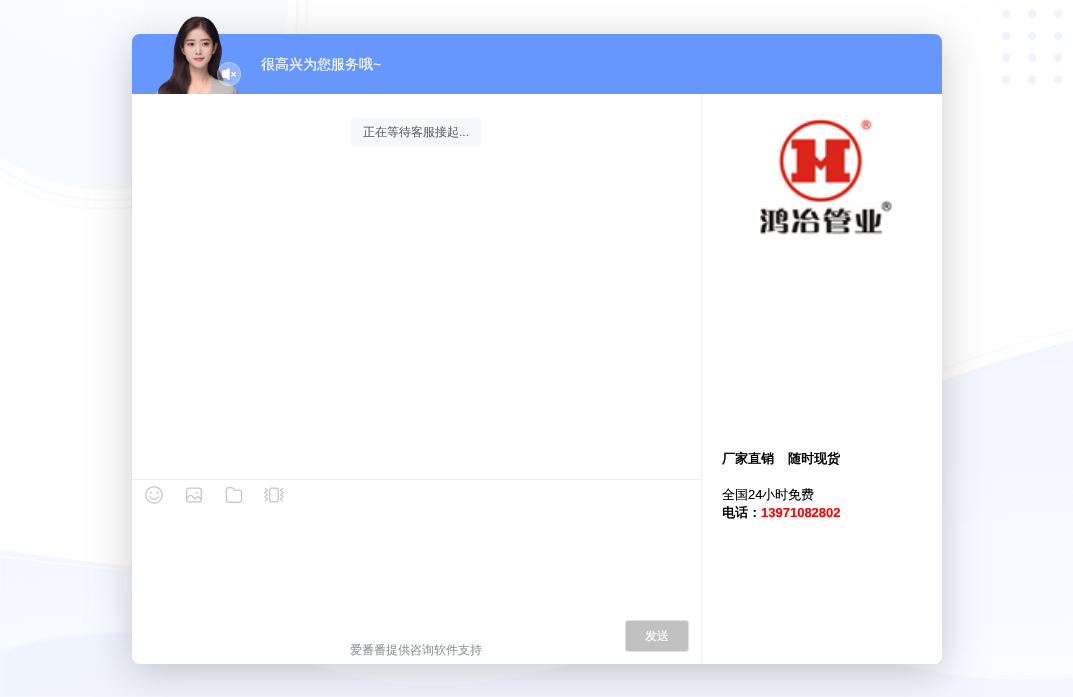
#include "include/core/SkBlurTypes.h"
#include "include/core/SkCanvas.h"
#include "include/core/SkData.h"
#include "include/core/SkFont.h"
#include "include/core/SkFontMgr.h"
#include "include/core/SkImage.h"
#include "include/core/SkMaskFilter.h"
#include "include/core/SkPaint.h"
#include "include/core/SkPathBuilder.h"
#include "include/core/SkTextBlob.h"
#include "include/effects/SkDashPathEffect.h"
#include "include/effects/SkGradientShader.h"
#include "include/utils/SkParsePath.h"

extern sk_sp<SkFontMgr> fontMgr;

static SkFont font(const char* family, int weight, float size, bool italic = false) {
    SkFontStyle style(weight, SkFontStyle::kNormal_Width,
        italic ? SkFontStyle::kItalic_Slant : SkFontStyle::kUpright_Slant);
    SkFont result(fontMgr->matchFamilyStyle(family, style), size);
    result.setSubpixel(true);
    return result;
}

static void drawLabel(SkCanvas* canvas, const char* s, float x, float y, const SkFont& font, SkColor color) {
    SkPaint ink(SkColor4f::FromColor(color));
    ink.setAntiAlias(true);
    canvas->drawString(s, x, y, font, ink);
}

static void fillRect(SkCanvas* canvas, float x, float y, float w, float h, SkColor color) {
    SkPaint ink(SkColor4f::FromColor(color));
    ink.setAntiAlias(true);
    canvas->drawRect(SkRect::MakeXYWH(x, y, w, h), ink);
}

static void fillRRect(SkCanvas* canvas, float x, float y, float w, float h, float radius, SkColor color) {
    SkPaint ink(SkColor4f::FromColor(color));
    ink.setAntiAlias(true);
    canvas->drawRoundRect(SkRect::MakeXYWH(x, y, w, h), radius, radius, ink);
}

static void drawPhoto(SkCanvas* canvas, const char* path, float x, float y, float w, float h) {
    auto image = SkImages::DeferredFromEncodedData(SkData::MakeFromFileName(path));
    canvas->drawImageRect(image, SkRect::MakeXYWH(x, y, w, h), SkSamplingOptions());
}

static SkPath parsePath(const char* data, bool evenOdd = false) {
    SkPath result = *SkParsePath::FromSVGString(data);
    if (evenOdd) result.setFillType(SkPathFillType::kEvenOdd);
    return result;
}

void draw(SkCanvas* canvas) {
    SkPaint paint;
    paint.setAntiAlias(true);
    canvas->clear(0xFFFFFFFF);
    drawPhoto(canvas, "assets/img1.png", 0, 0, 1073, 697);
    paint.setColor(0x33000000);
    paint.setMaskFilter(SkMaskFilter::MakeBlur(kNormal_SkBlurStyle, 20));
    canvas->drawRoundRect(SkRect::MakeXYWH(132, 42, 810, 630), 8, 8, paint);
    paint.setMaskFilter(nullptr);
    paint.setColor(0xFF6696FF);
    canvas->drawPath(parsePath("M140 34H934C938.5 34 942 37.5 942 42V94H132V42C132 37.5 135.5 34 140 34Z"), paint);
    drawPhoto(canvas, "assets/img2.png", 156, 16, 83, 78);
    SkFont font1 = font("WenQuanYi Zen Hei", 500, 14);
    drawLabel(canvas, "很高兴为您服务哦", 261, 69, font1, 0xFFFFFFFF);
    SkFont font2 = font("Liberation Sans", 400, 14);
    drawLabel(canvas, "~", 373, 69, font2, 0xFFFFFFFF);
    drawPhoto(canvas, "assets/img3.png", 217, 62, 24, 24);
    paint.setColor(0xFFFFFFFF);
    canvas->drawPath(parsePath("M132 94H701V664H140C135.5 664 132 660.5 132 656Z"), paint);
    fillRRect(canvas, 351, 118, 130, 28, 4, 0xFFF5F7FA);
    SkFont font3 = font("WenQuanYi Zen Hei", 500, 12);
    drawLabel(canvas, "正在等待客服接起", 363, 136, font3, 0xFF606266);
    SkFont font4 = font("Liberation Sans", 400, 12);
    drawLabel(canvas, "...", 459, 136, font4, 0xFF606266);
    fillRect(canvas, 132, 479, 569, 1, 0xFFEBEEF5);
    drawPhoto(canvas, "assets/img4.png", 145, 486, 18, 18);
    drawPhoto(canvas, "assets/img5.png", 186, 487, 16, 16);
    drawPhoto(canvas, "assets/img6.png", 225, 487, 18, 16);
    drawPhoto(canvas, "assets/img7.png", 264, 487, 20, 16);
    paint.setColor(0xFFC1C1C1);
    canvas->drawRoundRect(SkRect::MakeXYWH(625.5f, 620.5f, 63, 31), 2.5f, 2.5f, paint);
    paint.setStroke(true);
    paint.setStrokeWidth(1);
    paint.setColor(0xFFDCDFE6);
    canvas->drawRoundRect(SkRect::MakeXYWH(625.5f, 620.5f, 63, 31), 2.5f, 2.5f, paint);
    drawLabel(canvas, "发送", 645, 640, font3, 0xFFFFFFFF);
    drawLabel(canvas, "爱番番提供咨询软件支持", 350, 654, font3, 0xFF909399);
    paint.setStroke(false);
    paint.setColor(0xFFFFFFFF);
    canvas->drawPath(parsePath("M701 94H942V656C942 660.5 938.5 664 934 664H701Z"), paint);
    fillRect(canvas, 701, 94, 1, 570, 0xFFEBEEF5);
    drawPhoto(canvas, "assets/img8.png", 722, 114, 200, 123);
    SkFont font5 = font("WenQuanYi Zen Hei", 700, 13);
    drawLabel(canvas, "厂家直销", 722, 463, font5, 0xFF000000);
    drawLabel(canvas, "随时现货", 788, 463, font5, 0xFF000000);
    SkFont font6 = font("WenQuanYi Zen Hei", 500, 13);
    drawLabel(canvas, "全国", 722, 499, font6, 0xFF000000);
    SkFont font7 = font("Liberation Sans", 400, 13);
    drawLabel(canvas, "24", 748, 499, font7, 0xFF000000);
    drawLabel(canvas, "小时免费", 762, 499, font6, 0xFF000000);
    drawLabel(canvas, "电话：", 722, 517, font5, 0xFF000000);
    SkFont font8 = font("Liberation Sans", 700, 13);
    drawLabel(canvas, "13971082802", 761, 517, font8, 0xFFFE0100);
}
